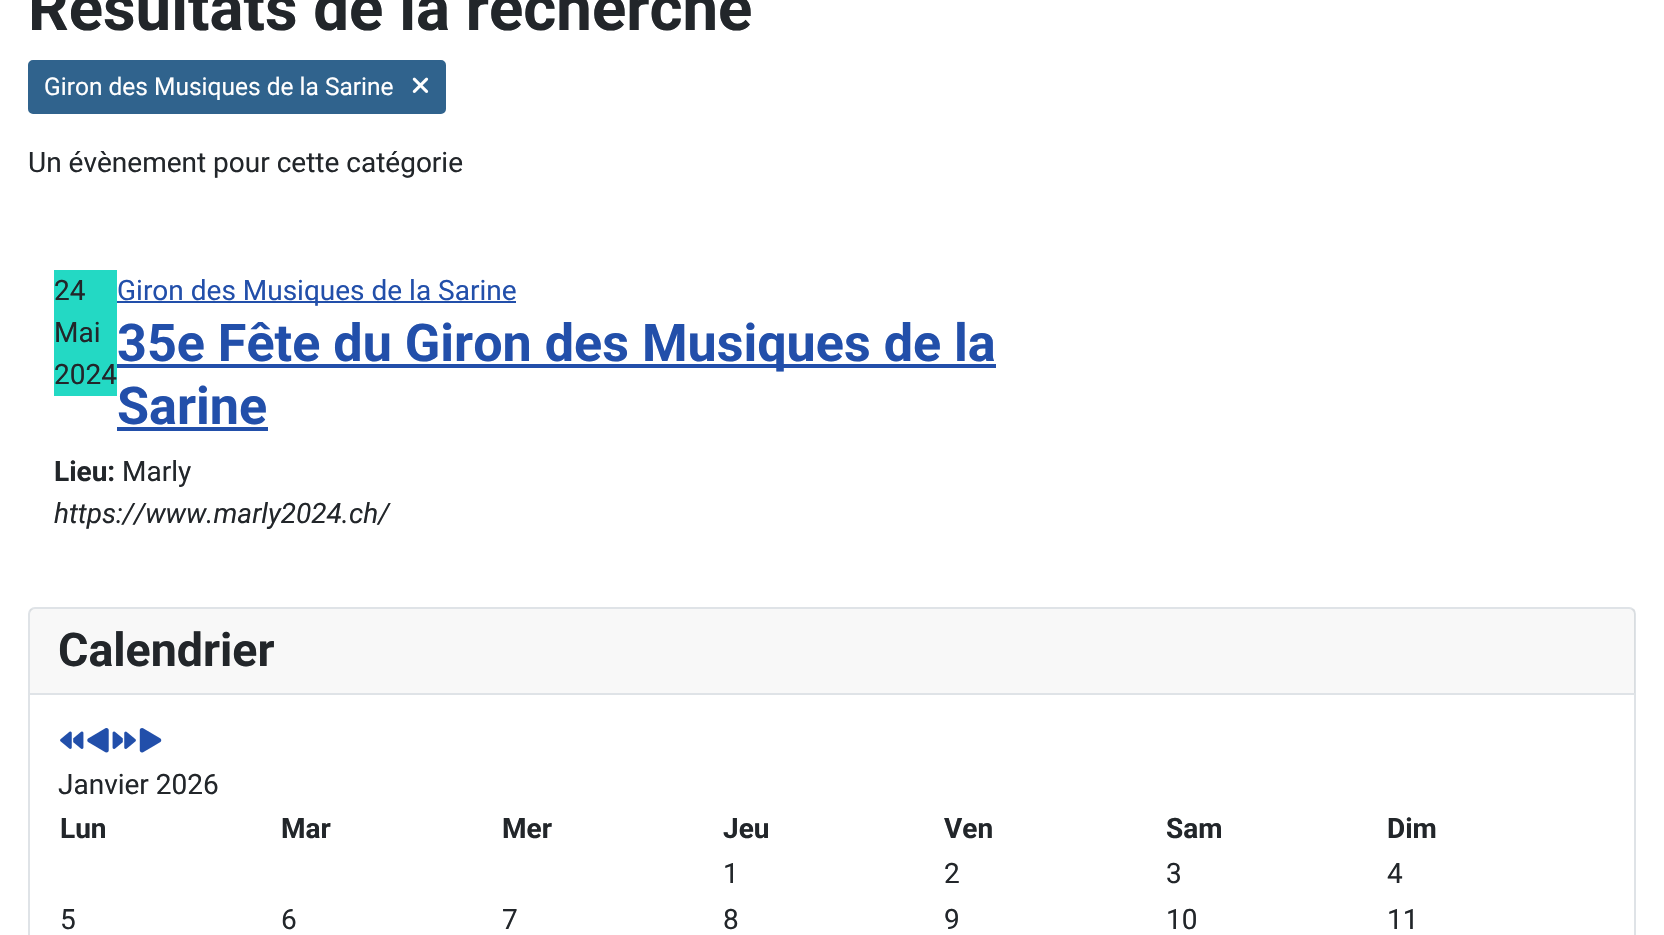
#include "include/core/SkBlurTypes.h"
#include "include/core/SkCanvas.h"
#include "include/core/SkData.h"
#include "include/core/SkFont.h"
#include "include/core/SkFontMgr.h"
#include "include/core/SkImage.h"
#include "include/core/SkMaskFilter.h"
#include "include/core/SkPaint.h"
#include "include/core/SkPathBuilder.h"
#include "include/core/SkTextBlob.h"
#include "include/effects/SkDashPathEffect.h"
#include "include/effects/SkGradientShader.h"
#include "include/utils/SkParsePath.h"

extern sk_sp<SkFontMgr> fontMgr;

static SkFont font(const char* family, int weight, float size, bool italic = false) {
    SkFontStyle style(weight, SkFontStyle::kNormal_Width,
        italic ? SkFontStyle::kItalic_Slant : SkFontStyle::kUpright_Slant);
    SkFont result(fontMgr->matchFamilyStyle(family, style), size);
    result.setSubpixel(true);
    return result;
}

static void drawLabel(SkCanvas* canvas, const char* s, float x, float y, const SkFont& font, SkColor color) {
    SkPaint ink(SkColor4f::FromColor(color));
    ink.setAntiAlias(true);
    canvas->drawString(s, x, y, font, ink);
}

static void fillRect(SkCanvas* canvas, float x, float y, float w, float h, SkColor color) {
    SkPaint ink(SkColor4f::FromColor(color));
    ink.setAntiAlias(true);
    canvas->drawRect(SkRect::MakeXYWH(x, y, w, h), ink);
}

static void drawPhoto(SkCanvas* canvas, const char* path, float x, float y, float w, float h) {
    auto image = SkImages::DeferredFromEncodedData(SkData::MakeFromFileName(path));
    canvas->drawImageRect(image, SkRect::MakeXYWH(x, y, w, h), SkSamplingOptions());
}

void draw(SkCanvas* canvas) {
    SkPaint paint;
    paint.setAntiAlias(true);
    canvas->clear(0xFFFFFFFF);
    SkFont font1 = font("Roboto", 700, 63.5f);
    drawLabel(canvas, "Résultats de la recherche", 28, 30, font1, 0xFF22262A);
    paint.setColor(0xFF30638D);
    canvas->drawRoundRect(SkRect::MakeXYWH(29, 61, 416, 52), 4, 4, paint);
    paint.setStroke(true);
    paint.setStrokeWidth(2);
    canvas->drawRoundRect(SkRect::MakeXYWH(29, 61, 416, 52), 4, 4, paint);
    SkFont font2 = font("Roboto", 400, 24.5f);
    drawLabel(canvas, "Giron des Musiques de la Sarine", 44, 95, font2, 0xFFFFFFFF);
    drawPhoto(canvas, "assets/img1.png", 412, 77, 17, 16);
    SkFont font3 = font("Roboto", 400, 28);
    drawLabel(canvas, "Un évènement pour cette catégorie", 28, 172, font3, 0xFF22262A);
    fillRect(canvas, 117, 301, 399, 2, 0xFF224FAA);
    drawLabel(canvas, "Giron des Musiques de la Sarine", 117, 300, font3, 0xFF224FAA);
    fillRect(canvas, 117, 364, 879, 4, 0xFF224FAA);
    SkFont font4 = font("Roboto", 700, 52.1f);
    drawLabel(canvas, "35e Fête du Giron des Musiques de la", 117, 361, font4, 0xFF224FAA);
    drawLabel(canvas, "Sarine", 117, 424, font4, 0xFF224FAA);
    fillRect(canvas, 117, 427, 151, 4, 0xFF224FAA);
    SkFont font5 = font("Roboto", 700, 28);
    drawLabel(canvas, "Lieu:", 54, 481, font5, 0xFF22262A);
    drawLabel(canvas, "Marly", 122, 481, font3, 0xFF22262A);
    SkFont font6 = font("Roboto", 400, 28, true);
    drawLabel(canvas, "https://www.marly2024.ch/", 54, 523, font6, 0xFF22262A);
    fillRect(canvas, 54, 270, 63, 126, 0xFF23D9C4);
    drawLabel(canvas, "24", 54, 300, font3, 0xFF22262A);
    drawLabel(canvas, "Mai", 54, 342, font3, 0xFF22262A);
    drawLabel(canvas, "2024", 54, 384, font3, 0xFF22262A);
    paint.setColor(0xFFDFE3E7);
    canvas->drawRoundRect(SkRect::MakeXYWH(29, 608, 1606, 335), 6, 6, paint);
    fillRect(canvas, 30, 609, 1605, 84, 0x0822262A);
    fillRect(canvas, 30, 693, 1605, 2, 0xFFDFE3E7);
    SkFont font7 = font("Roboto", 700, 46.5f);
    drawLabel(canvas, "Calendrier", 58, 666, font7, 0xFF22262A);
    drawPhoto(canvas, "assets/img2.png", 60, 731, 24, 18);
    drawPhoto(canvas, "assets/img3.png", 87, 728, 22, 25);
    drawPhoto(canvas, "assets/img4.png", 112, 731, 24, 18);
    drawPhoto(canvas, "assets/img5.png", 139, 728, 23, 25);
    drawLabel(canvas, "Janvier 2026", 58, 794, font3, 0xFF22262A);
    drawLabel(canvas, "Lun", 60, 838, font5, 0xFF22262A);
    drawLabel(canvas, "Mar", 281, 838, font5, 0xFF22262A);
    drawLabel(canvas, "Mer", 502, 838, font5, 0xFF22262A);
    drawLabel(canvas, "Jeu", 723, 838, font5, 0xFF22262A);
    drawLabel(canvas, "Ven", 944, 838, font5, 0xFF22262A);
    drawLabel(canvas, "Sam", 1166, 838, font5, 0xFF22262A);
    drawLabel(canvas, "Dim", 1387, 838, font5, 0xFF22262A);
    drawLabel(canvas, "1", 723, 883, font3, 0xFF22262A);
    drawLabel(canvas, "2", 944, 883, font3, 0xFF22262A);
    drawLabel(canvas, "3", 1166, 883, font3, 0xFF22262A);
    drawLabel(canvas, "4", 1387, 883, font3, 0xFF22262A);
    drawLabel(canvas, "5", 60, 929, font3, 0xFF22262A);
    drawLabel(canvas, "6", 281, 929, font3, 0xFF22262A);
    drawLabel(canvas, "7", 502, 929, font3, 0xFF22262A);
    drawLabel(canvas, "8", 723, 929, font3, 0xFF22262A);
    drawLabel(canvas, "9", 944, 929, font3, 0xFF22262A);
    drawLabel(canvas, "10", 1166, 929, font3, 0xFF22262A);
    drawLabel(canvas, "11", 1387, 929, font3, 0xFF22262A);
}
